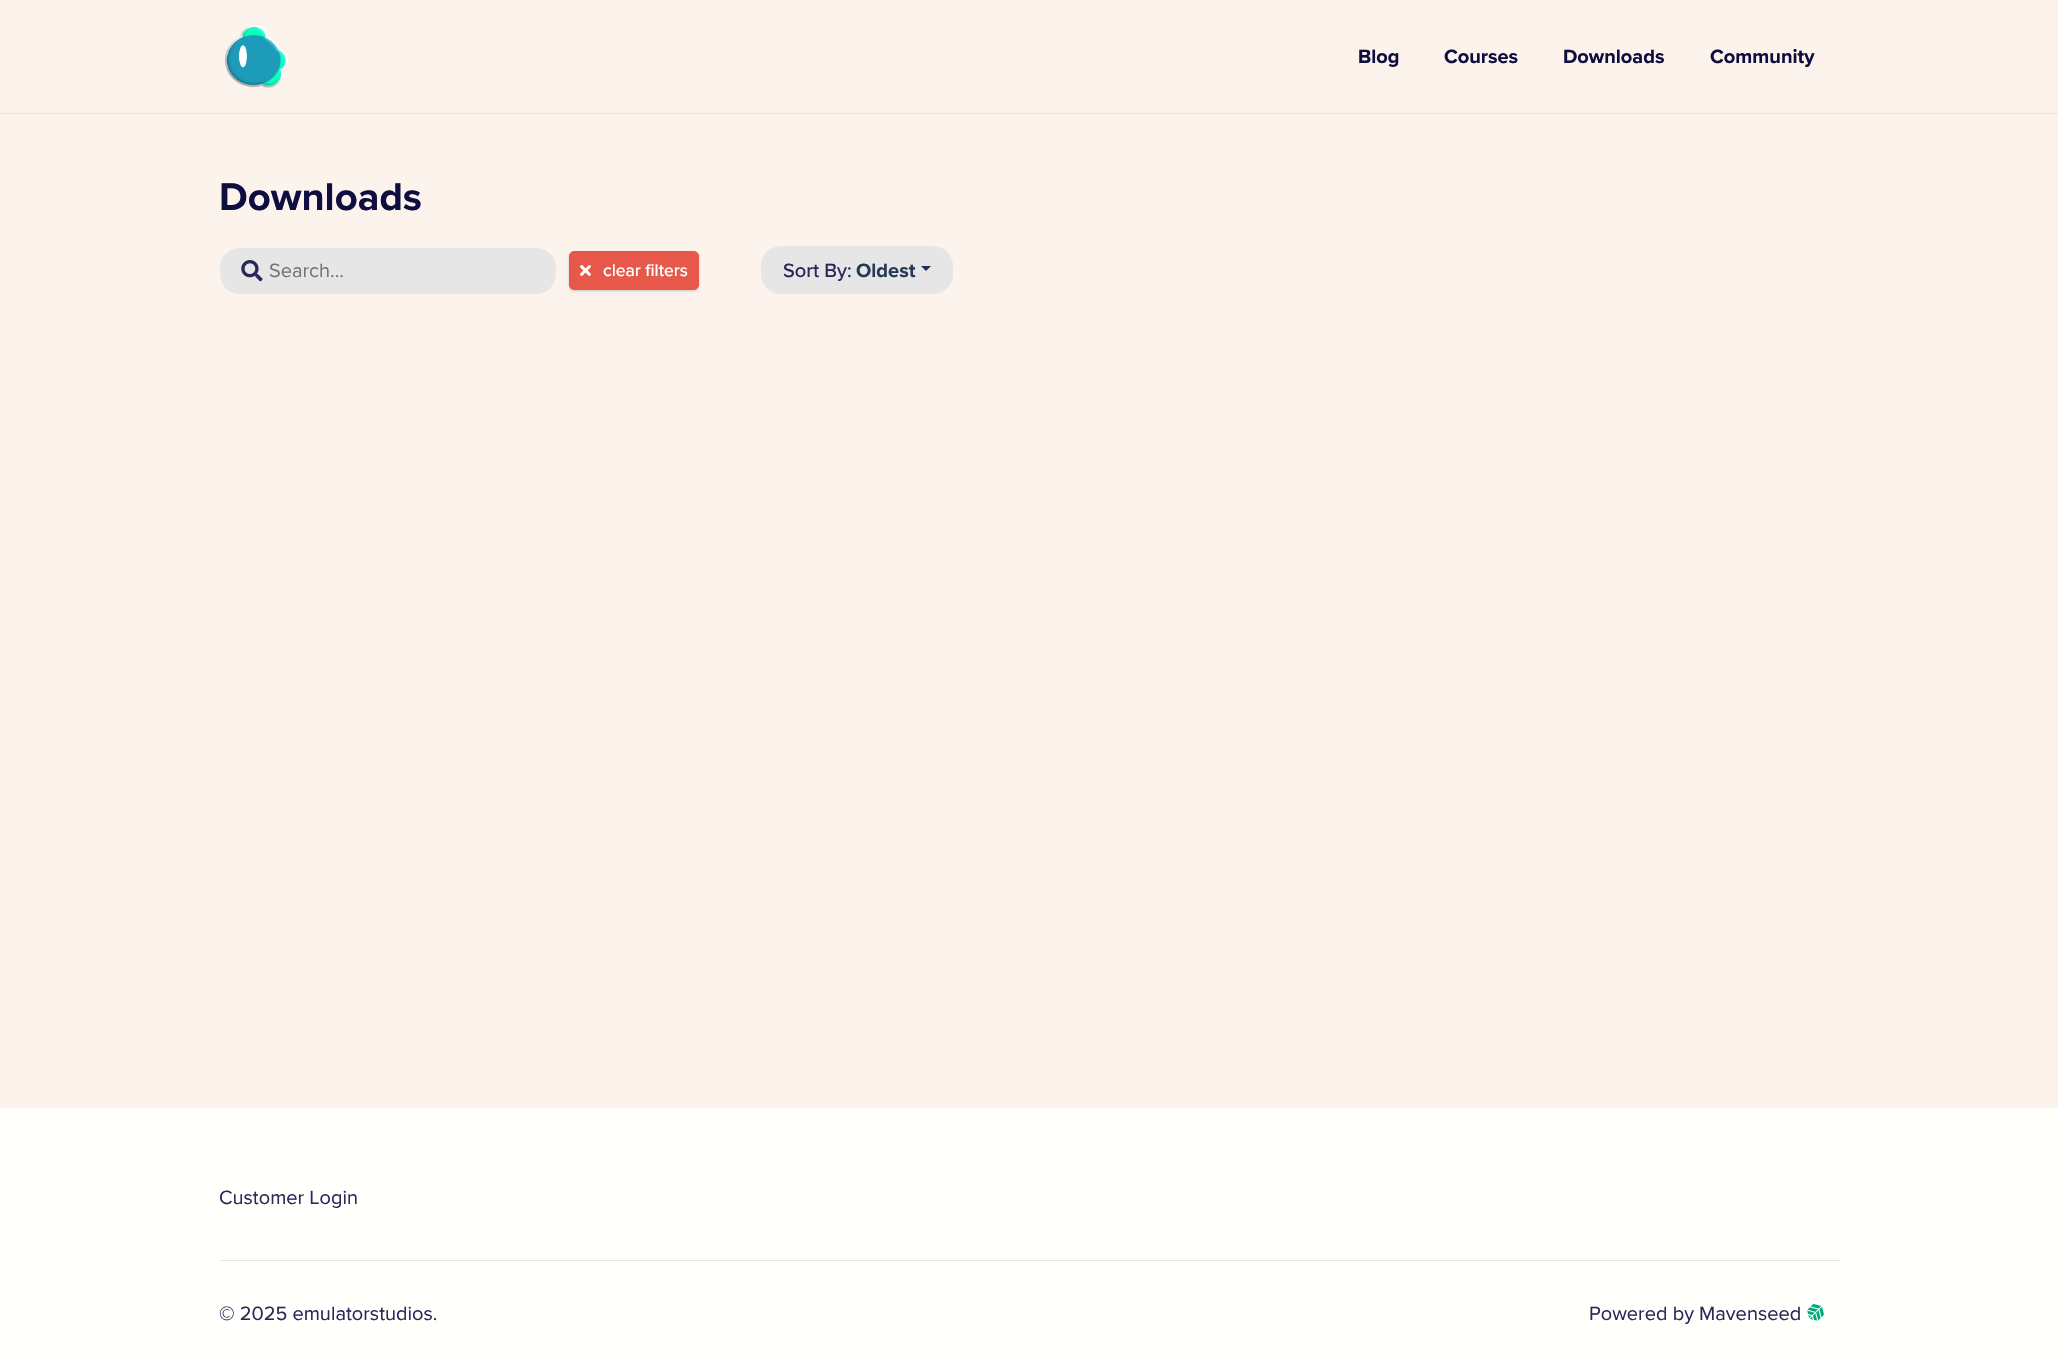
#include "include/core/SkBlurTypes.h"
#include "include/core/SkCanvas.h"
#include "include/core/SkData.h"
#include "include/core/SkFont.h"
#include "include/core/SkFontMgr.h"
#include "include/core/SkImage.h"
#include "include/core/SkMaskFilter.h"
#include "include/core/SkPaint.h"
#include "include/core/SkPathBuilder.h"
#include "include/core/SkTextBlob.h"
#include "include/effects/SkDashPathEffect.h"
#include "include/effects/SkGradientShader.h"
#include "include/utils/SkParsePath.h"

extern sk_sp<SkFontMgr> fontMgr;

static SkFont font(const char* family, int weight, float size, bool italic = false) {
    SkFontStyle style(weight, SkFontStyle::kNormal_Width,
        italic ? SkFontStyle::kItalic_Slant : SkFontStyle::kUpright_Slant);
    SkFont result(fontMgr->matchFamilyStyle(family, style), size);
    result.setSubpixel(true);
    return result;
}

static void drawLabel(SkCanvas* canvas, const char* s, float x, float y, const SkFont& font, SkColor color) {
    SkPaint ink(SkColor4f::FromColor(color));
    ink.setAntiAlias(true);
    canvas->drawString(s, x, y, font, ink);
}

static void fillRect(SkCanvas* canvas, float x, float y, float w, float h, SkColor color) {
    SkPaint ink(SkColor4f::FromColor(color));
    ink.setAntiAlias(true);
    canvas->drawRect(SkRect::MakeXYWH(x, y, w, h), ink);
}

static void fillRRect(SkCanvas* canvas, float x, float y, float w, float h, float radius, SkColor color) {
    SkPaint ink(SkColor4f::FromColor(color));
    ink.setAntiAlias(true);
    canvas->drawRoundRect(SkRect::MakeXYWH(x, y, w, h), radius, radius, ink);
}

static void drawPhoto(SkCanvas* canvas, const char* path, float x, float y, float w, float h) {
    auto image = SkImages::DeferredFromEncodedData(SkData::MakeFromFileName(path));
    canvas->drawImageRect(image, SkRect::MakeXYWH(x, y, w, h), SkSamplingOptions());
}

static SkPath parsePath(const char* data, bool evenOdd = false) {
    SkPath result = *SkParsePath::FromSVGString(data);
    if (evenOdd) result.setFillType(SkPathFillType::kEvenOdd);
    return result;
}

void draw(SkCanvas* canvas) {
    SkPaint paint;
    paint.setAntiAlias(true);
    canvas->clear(0xFFFCF3ED);
    fillRect(canvas, 0, 113, 2058, 1, 0xFFE6E6E6);
    drawPhoto(canvas, "assets/img1.png", 225, 25, 63, 63);
    SkFont font1 = font("Proxima Nova", 700, 20);
    drawLabel(canvas, "Blog", 1358, 63, font1, 0xFF0E0F40);
    drawLabel(canvas, "Courses", 1444, 63, font1, 0xFF0E0F40);
    drawLabel(canvas, "Downloads", 1563, 63, font1, 0xFF0E0F40);
    drawLabel(canvas, "Community", 1710, 63, font1, 0xFF0E0F40);
    SkFont font2 = font("Proxima Nova", 700, 40);
    drawLabel(canvas, "Downloads", 219, 210, font2, 0xFF0E0F40);
    fillRRect(canvas, 220, 248, 336, 46, 20, 0xFFE6E6E6);
    drawPhoto(canvas, "assets/img2.png", 241, 260, 22, 22);
    SkFont font3 = font("Proxima Nova", 400, 20);
    drawLabel(canvas, "Search...", 269, 277, font3, 0xFF757575);
    paint.setColor(0x1F000000);
    paint.setMaskFilter(SkMaskFilter::MakeBlur(kNormal_SkBlurStyle, 1));
    canvas->drawRoundRect(SkRect::MakeXYWH(569, 253, 130, 38), 5, 5, paint);
    paint.setMaskFilter(nullptr);
    paint.setColor(0x0F000000);
    paint.setMaskFilter(SkMaskFilter::MakeBlur(kNormal_SkBlurStyle, 2));
    canvas->drawRoundRect(SkRect::MakeXYWH(569, 253, 130, 38), 5, 5, paint);
    paint.setMaskFilter(nullptr);
    paint.setColor(0xFFE7584A);
    canvas->drawRoundRect(SkRect::MakeXYWH(569.5f, 251.5f, 129, 38), 4.5f, 4.5f, paint);
    paint.setStroke(true);
    paint.setStrokeWidth(1);
    canvas->drawRoundRect(SkRect::MakeXYWH(569.5f, 251.5f, 129, 38), 4.5f, 4.5f, paint);
    drawPhoto(canvas, "assets/img3.png", 580, 265, 11, 11);
    SkFont font4 = font("Proxima Nova", 500, 17.5f);
    drawLabel(canvas, "clear filters", 603, 276, font4, 0xFFFFFFFF);
    fillRRect(canvas, 761, 246, 192, 48, 20, 0xFFE6E6E6);
    SkFont font5 = font("Proxima Nova", 500, 20);
    drawLabel(canvas, "Sort By:", 783, 277, font5, 0xFF28295A);
    drawLabel(canvas, "Oldest", 856, 277, font1, 0xFF243B53);
    paint.setStroke(false);
    paint.setColor(0xFF28295A);
    canvas->drawPath(parsePath("M921 266H931L926 271Z"), paint);
    fillRect(canvas, 0, 1108, 2058, 258, 0xFFFFFFFC);
    drawLabel(canvas, "Customer Login", 219, 1204, font3, 0xFF28295A);
    fillRect(canvas, 220, 1260, 1620, 1, 0xFFE6E6E6);
    drawLabel(canvas, "© 2025 emulatorstudios.", 219, 1320, font3, 0xFF28295A);
    drawLabel(canvas, "Powered by Mavenseed", 1589, 1320, font3, 0xFF28295A);
    drawPhoto(canvas, "assets/img4.png", 1807, 1304, 17, 17);
}
